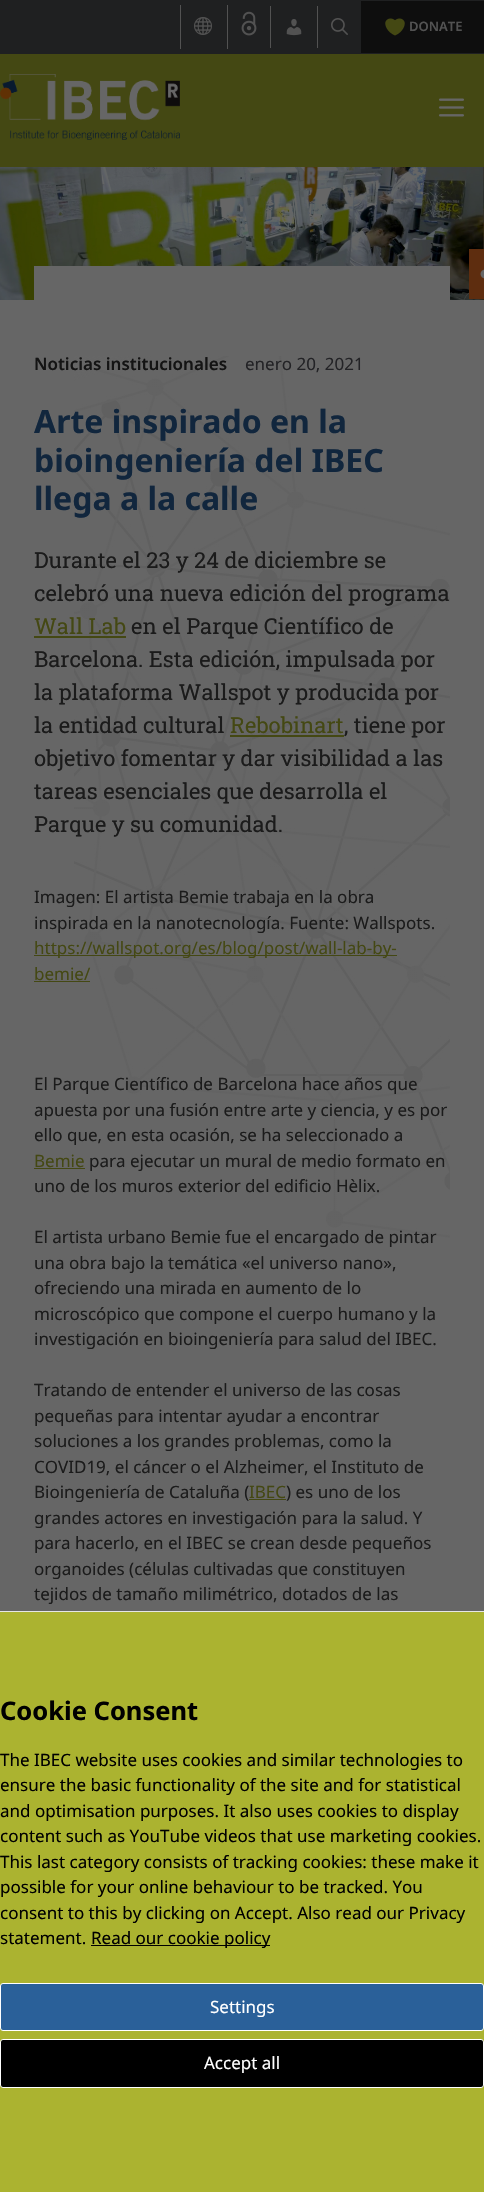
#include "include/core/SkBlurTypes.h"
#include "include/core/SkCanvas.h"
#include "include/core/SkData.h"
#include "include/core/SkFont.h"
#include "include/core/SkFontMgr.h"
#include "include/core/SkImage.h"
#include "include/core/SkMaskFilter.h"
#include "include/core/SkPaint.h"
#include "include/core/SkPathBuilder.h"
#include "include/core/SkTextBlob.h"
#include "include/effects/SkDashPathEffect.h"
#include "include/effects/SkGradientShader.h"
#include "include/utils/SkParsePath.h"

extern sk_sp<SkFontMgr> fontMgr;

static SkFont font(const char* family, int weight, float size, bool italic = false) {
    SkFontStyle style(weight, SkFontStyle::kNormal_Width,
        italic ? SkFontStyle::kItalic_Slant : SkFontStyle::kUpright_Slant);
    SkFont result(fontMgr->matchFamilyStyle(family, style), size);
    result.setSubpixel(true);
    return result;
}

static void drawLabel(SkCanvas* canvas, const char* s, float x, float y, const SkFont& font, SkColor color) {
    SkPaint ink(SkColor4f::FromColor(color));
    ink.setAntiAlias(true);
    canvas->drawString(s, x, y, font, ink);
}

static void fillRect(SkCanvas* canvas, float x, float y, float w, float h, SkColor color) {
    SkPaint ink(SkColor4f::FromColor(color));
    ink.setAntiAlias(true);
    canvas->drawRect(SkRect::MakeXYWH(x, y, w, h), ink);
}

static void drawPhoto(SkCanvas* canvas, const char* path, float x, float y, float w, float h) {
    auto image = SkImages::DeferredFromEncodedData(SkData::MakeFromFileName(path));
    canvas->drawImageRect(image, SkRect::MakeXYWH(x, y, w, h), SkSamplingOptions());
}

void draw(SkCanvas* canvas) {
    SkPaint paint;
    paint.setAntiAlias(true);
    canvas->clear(0xFF666666);
    fillRect(canvas, 0, 0, 484, 54, 0xFF1F2021);
    fillRect(canvas, 227, 5, 1, 44, 0xFF525252);
    fillRect(canvas, 180, 5, 1, 44, 0xFF525252);
    drawPhoto(canvas, "assets/img1.png", 194, 17, 18, 18);
    drawPhoto(canvas, "assets/img2.png", 241, 11, 16, 25);
    fillRect(canvas, 270, 6, 1, 42, 0xFF525252);
    drawPhoto(canvas, "assets/img3.png", 286, 19, 16, 17);
    fillRect(canvas, 317, 6, 1, 42, 0xFF525252);
    drawPhoto(canvas, "assets/img4.png", 331, 18, 17, 17);
    fillRect(canvas, 361, 1, 123, 52, 0xFF0E0E0E);
    drawPhoto(canvas, "assets/img5.png", 385, 18, 20, 18);
    SkFont font1 = font("Noto Sans", 600, 13);
    drawLabel(canvas, "DONATE", 409, 31, font1, 0xFF525252);
    fillRect(canvas, 0, 54, 484, 113, 0xFF444813);
    drawPhoto(canvas, "assets/img6.png", 0, 74, 180, 66);
    drawPhoto(canvas, "assets/img7.png", 439, 98, 25, 19);
    drawPhoto(canvas, "assets/img8.png", 0, 167, 484, 133);
    fillRect(canvas, 469, 249, 15, 50, 0xFF5E2D0F);
    drawPhoto(canvas, "assets/img9.png", 480, 269, 4, 10);
    fillRect(canvas, 34, 266, 416, 34, 0xFF666666);
    drawPhoto(canvas, "assets/img10.png", 74, 356, 376, 882);
    SkFont font2 = font("Noto Sans", 600, 17);
    drawLabel(canvas, "Noticias institucionales", 34, 370, font2, 0xFF141414);
    SkFont font3 = font("Noto Sans", 400, 17);
    drawLabel(canvas, "enero 20, 2021", 245, 370, font3, 0xFF232326);
    SkFont font4 = font("Noto Sans", 700, 32);
    drawLabel(canvas, "Arte inspirado en la", 34, 433, font4, 0xFF11263D);
    drawLabel(canvas, "bioingeniería del IBEC", 34, 472, font4, 0xFF11263D);
    drawLabel(canvas, "llega a la calle", 34, 510, font4, 0xFF11263D);
    SkFont font5 = font("Roboto Slab", 400, 22);
    drawLabel(canvas, "Durante el 23 y 24 de diciembre se", 34, 568, font5, 0xFF1B1B1B);
    drawLabel(canvas, "celebró una nueva edición del programa", 34, 601, font5, 0xFF1B1B1B);
    drawLabel(canvas, "Wall Lab", 34, 634, font5, 0xFF444813);
    fillRect(canvas, 34, 636, 92, 2, 0xFF444813);
    drawLabel(canvas, "en el Parque Científico de", 131, 634, font5, 0xFF1B1B1B);
    drawLabel(canvas, "Barcelona. Esta edición, impulsada por", 34, 667, font5, 0xFF1B1B1B);
    drawLabel(canvas, "la plataforma Wallspot y producida por", 34, 700, font5, 0xFF1B1B1B);
    drawLabel(canvas, "la entidad cultural", 34, 733, font5, 0xFF1B1B1B);
    drawLabel(canvas, "Rebobinart", 230, 733, font5, 0xFF444813);
    fillRect(canvas, 230, 735, 114, 2, 0xFF444813);
    drawLabel(canvas, ", tiene por", 344, 733, font5, 0xFF1B1B1B);
    drawLabel(canvas, "objetivo fomentar y dar visibilidad a las", 34, 766, font5, 0xFF1B1B1B);
    drawLabel(canvas, "tareas esenciales que desarrolla el", 34, 799, font5, 0xFF1B1B1B);
    drawLabel(canvas, "Parque y su comunidad.", 34, 832, font5, 0xFF1B1B1B);
    drawLabel(canvas, "Imagen: El artista Bemie trabaja en la obra", 34, 903, font3, 0xFF1B1B1B);
    drawLabel(canvas, "inspirada en la nanotecnología. Fuente: Wallspots.", 34, 929, font3, 0xFF1B1B1B);
    fillRect(canvas, 34, 955, 363, 1, 0xFF444813);
    drawLabel(canvas, "https://wallspot.org/es/blog/post/wall-lab-by-", 34, 954, font3, 0xFF444813);
    drawLabel(canvas, "bemie/", 34, 980, font3, 0xFF444813);
    fillRect(canvas, 34, 981, 56, 1, 0xFF444813);
    drawLabel(canvas, "El Parque Científico de Barcelona hace años que", 34, 1090, font3, 0xFF1B1B1B);
    drawLabel(canvas, "apuesta por una fusión entre arte y ciencia, y es por", 34, 1116, font3, 0xFF1B1B1B);
    drawLabel(canvas, "ello que, en esta ocasión, se ha seleccionado a", 34, 1141, font3, 0xFF1B1B1B);
    drawLabel(canvas, "Bemie", 34, 1167, font3, 0xFF444813);
    fillRect(canvas, 34, 1168, 51, 1, 0xFF444813);
    drawLabel(canvas, "para ejecutar un mural de medio formato en", 89, 1167, font3, 0xFF1B1B1B);
    drawLabel(canvas, "uno de los muros exterior del edificio Hèlix.", 34, 1192, font3, 0xFF1B1B1B);
    drawLabel(canvas, "El artista urbano Bemie fue el encargado de pintar", 34, 1243, font3, 0xFF1B1B1B);
    drawLabel(canvas, "una obra bajo la temática «el universo nano»,", 34, 1269, font3, 0xFF1B1B1B);
    drawLabel(canvas, "ofreciendo una mirada en aumento de lo", 34, 1294, font3, 0xFF1B1B1B);
    drawLabel(canvas, "microscópico que compone el cuerpo humano y la", 34, 1320, font3, 0xFF1B1B1B);
    drawLabel(canvas, "investigación en bioingeniería para salud del IBEC.", 34, 1345, font3, 0xFF1B1B1B);
    drawLabel(canvas, "Tratando de entender el universo de las cosas", 34, 1396, font3, 0xFF1B1B1B);
    drawLabel(canvas, "pequeñas para intentar ayudar a encontrar", 34, 1422, font3, 0xFF1B1B1B);
    drawLabel(canvas, "soluciones a los grandes problemas, como la", 34, 1447, font3, 0xFF1B1B1B);
    drawLabel(canvas, "COVID19, el cáncer o el Alzheimer, el Instituto de", 34, 1473, font3, 0xFF1B1B1B);
    drawLabel(canvas, "Bioingeniería de Cataluña (", 34, 1498, font3, 0xFF1B1B1B);
    drawLabel(canvas, "IBEC", 249, 1498, font3, 0xFF444813);
    fillRect(canvas, 249, 1499, 37, 1, 0xFF444813);
    drawLabel(canvas, ") es uno de los", 286, 1498, font3, 0xFF1B1B1B);
    drawLabel(canvas, "grandes actores en investigación para la salud. Y", 34, 1524, font3, 0xFF1B1B1B);
    drawLabel(canvas, "para hacerlo, en el IBEC se crean desde pequeños", 34, 1549, font3, 0xFF1B1B1B);
    drawLabel(canvas, "organoides (células cultivadas que constituyen", 34, 1575, font3, 0xFF1B1B1B);
    drawLabel(canvas, "tejidos de tamaño milimétrico, dotados de las", 34, 1600, font3, 0xFF1B1B1B);
    fillRect(canvas, 0, 1612, 484, 580, 0xFFABB330);
    fillRect(canvas, 0, 1611, 484, 1, 0xFFE6E6E6);
    SkFont font6 = font("Noto Sans", 700, 25.5f);
    drawLabel(canvas, "Cookie Consent", 0, 1720, font6, 0xFF000000);
    drawLabel(canvas, "The IBEC website uses cookies and similar technologies to", 0, 1766, font3, 0xFF000000);
    drawLabel(canvas, "ensure the basic functionality of the site and for statistical", 0, 1791, font3, 0xFF000000);
    drawLabel(canvas, "and optimisation purposes. It also uses cookies to display", 0, 1817, font3, 0xFF000000);
    drawLabel(canvas, "content such as YouTube videos that use marketing cookies.", 0, 1842, font3, 0xFF000000);
    drawLabel(canvas, "This last category consists of tracking cookies: these make it", 0, 1868, font3, 0xFF000000);
    drawLabel(canvas, "possible for your online behaviour to be tracked. You", 0, 1893, font3, 0xFF000000);
    drawLabel(canvas, "consent to this by clicking on Accept. Also read our Privacy", 0, 1919, font3, 0xFF000000);
    drawLabel(canvas, "statement.", 0, 1944, font3, 0xFF000000);
    fillRect(canvas, 91, 1945, 179, 1, 0xFF000000);
    drawLabel(canvas, "Read our cookie policy", 91, 1944, font3, 0xFF000000);
    paint.setColor(0xFF2A6099);
    canvas->drawRoundRect(SkRect::MakeXYWH(0.5f, 1983.5f, 483, 47), 2.5f, 2.5f, paint);
    paint.setStroke(true);
    paint.setStrokeWidth(1);
    paint.setColor(0xFFFFFFFF);
    canvas->drawRoundRect(SkRect::MakeXYWH(0.5f, 1983.5f, 483, 47), 2.5f, 2.5f, paint);
    drawLabel(canvas, "Settings", 210, 2013, font3, 0xFFFFFFFF);
    paint.setStroke(false);
    paint.setColor(0xFF000000);
    canvas->drawRoundRect(SkRect::MakeXYWH(0.5f, 2039.5f, 483, 48), 2.5f, 2.5f, paint);
    paint.setStroke(true);
    paint.setColor(0xFFFFFFFF);
    canvas->drawRoundRect(SkRect::MakeXYWH(0.5f, 2039.5f, 483, 48), 2.5f, 2.5f, paint);
    drawLabel(canvas, "Accept all", 204, 2069, font3, 0xFFFFFFFF);
}
